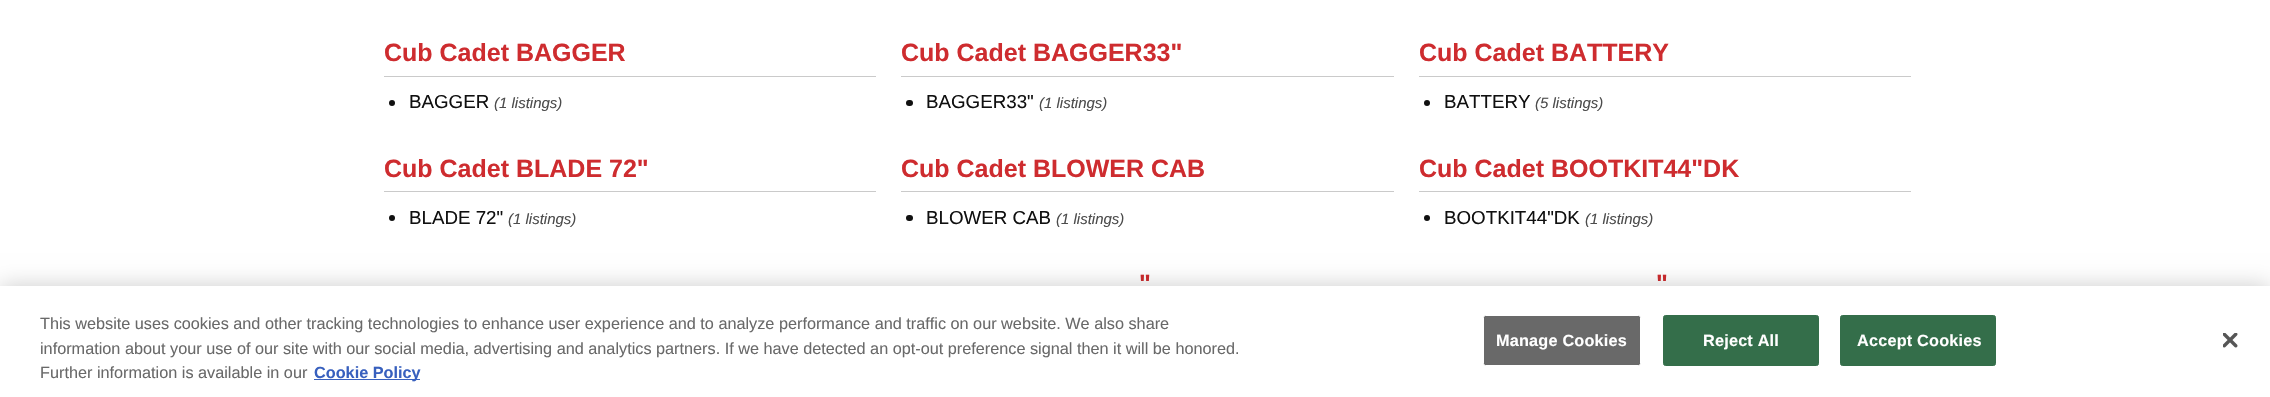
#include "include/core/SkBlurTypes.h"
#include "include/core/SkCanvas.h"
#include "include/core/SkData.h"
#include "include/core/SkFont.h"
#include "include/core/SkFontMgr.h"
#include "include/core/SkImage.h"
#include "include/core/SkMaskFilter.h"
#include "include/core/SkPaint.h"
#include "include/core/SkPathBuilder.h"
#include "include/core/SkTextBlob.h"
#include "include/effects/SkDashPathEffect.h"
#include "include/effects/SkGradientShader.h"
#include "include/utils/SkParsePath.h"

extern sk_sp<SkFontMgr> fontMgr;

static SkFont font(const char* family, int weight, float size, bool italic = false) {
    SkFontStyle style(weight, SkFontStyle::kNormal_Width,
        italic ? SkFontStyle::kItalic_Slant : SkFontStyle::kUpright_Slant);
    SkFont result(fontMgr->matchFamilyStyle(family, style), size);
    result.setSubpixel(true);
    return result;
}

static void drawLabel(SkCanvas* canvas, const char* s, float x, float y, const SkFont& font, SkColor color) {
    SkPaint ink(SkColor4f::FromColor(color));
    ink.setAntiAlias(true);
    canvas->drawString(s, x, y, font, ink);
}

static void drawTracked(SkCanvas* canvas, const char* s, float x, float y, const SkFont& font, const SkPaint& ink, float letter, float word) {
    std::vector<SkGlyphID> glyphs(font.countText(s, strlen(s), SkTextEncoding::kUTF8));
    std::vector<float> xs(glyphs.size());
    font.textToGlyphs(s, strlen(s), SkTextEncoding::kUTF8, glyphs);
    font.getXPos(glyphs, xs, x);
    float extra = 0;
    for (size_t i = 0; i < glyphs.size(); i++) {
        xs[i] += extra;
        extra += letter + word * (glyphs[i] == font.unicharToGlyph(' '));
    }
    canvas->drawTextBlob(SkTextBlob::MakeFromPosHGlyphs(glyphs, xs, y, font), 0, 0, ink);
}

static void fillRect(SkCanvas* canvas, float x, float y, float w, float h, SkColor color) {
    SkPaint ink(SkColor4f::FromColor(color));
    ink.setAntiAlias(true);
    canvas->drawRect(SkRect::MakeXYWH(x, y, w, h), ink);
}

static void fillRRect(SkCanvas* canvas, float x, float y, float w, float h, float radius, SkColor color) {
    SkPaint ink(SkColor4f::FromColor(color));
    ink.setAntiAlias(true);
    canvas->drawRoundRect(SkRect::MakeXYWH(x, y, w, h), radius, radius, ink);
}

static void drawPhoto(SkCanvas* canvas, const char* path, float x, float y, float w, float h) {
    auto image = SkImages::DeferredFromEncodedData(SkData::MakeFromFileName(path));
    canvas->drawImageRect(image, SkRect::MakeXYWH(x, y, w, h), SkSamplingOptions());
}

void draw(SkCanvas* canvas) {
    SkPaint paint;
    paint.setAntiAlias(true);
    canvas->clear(0xFFFFFFFF);
    fillRect(canvas, 384, 76, 492, 1, 0xFFCACACA);
    SkFont font1 = font("Liberation Sans", 700, 25);
    drawLabel(canvas, "Cub Cadet BAGGER", 384, 61, font1, 0xFFCE2C2F);
    paint.setColor(0xFF101010);
    canvas->drawCircle(392, 103, 3, paint);
    SkFont font2 = font("Liberation Sans", 400, 18.75f);
    drawLabel(canvas, "BAGGER", 409, 108, font2, 0xFF101010);
    SkFont font3 = font("Liberation Sans", 400, 15, true);
    drawLabel(canvas, "(1 listings)", 494, 108, font3, 0xFF4C4C4C);
    fillRect(canvas, 901, 76, 493, 1, 0xFFCACACA);
    drawLabel(canvas, "Cub Cadet BAGGER33\"", 901, 61, font1, 0xFFCE2C2F);
    fillRRect(canvas, 906, 100, 7, 6, 3, 0xFF101010);
    drawLabel(canvas, "BAGGER33\"", 926, 108, font2, 0xFF101010);
    drawLabel(canvas, "(1 listings)", 1039, 108, font3, 0xFF4C4C4C);
    fillRect(canvas, 1419, 76, 492, 1, 0xFFCACACA);
    drawLabel(canvas, "Cub Cadet BATTERY", 1419, 61, font1, 0xFFCE2C2F);
    canvas->drawCircle(1427, 103, 3, paint);
    drawLabel(canvas, "BATTERY", 1444, 108, font2, 0xFF101010);
    drawLabel(canvas, "(5 listings)", 1535, 108, font3, 0xFF4C4C4C);
    fillRect(canvas, 384, 191, 492, 1, 0xFFCACACA);
    drawLabel(canvas, "Cub Cadet BLADE 72\"", 384, 177, font1, 0xFFCE2C2F);
    canvas->drawCircle(392, 218, 3, paint);
    drawLabel(canvas, "BLADE 72\"", 409, 224, font2, 0xFF101010);
    drawLabel(canvas, "(1 listings)", 508, 224, font3, 0xFF4C4C4C);
    fillRect(canvas, 901, 191, 493, 1, 0xFFCACACA);
    drawLabel(canvas, "Cub Cadet BLOWER CAB", 901, 177, font1, 0xFFCE2C2F);
    fillRRect(canvas, 906, 215, 7, 6, 3, 0xFF101010);
    drawLabel(canvas, "BLOWER CAB", 926, 224, font2, 0xFF101010);
    drawLabel(canvas, "(1 listings)", 1056, 224, font3, 0xFF4C4C4C);
    fillRect(canvas, 1419, 191, 492, 1, 0xFFCACACA);
    drawLabel(canvas, "Cub Cadet BOOTKIT44\"DK", 1419, 177, font1, 0xFFCE2C2F);
    canvas->drawCircle(1427, 218, 3, paint);
    drawLabel(canvas, "BOOTKIT44\"DK", 1444, 224, font2, 0xFF101010);
    drawLabel(canvas, "(1 listings)", 1585, 224, font3, 0xFF4C4C4C);
    drawLabel(canvas, "\"", 1139, 292, font1, 0xFFCE2C2F);
    drawLabel(canvas, "\"", 1656, 292, font1, 0xFFCE2C2F);
    paint.setColor(0x33000000);
    paint.setMaskFilter(SkMaskFilter::MakeBlur(kNormal_SkBlurStyle, 11));
    canvas->drawRect(SkRect::MakeXYWH(0, 286, 2270, 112), paint);
    paint.setMaskFilter(nullptr);
    fillRect(canvas, 0, 286, 2270, 111, 0xFFFFFFFF);
    SkFont font4 = font("Liberation Sans", 400, 16.25f);
    drawLabel(canvas, "This website uses cookies and other tracking technologies to enhance user experience and to analyze performance and traffic on our website. We also share", 40, 329, font4, 0xFF696969);
    drawLabel(canvas, "information about your use of our site with our social media, advertising and analytics partners. If we have detected an opt-out preference signal then it will be honored.", 40, 354, font4, 0xFF696969);
    drawLabel(canvas, "Further information is available in our", 40, 378, font4, 0xFF696969);
    fillRect(canvas, 314, 379, 106, 1, 0xFF3860BE);
    SkFont font5 = font("Liberation Sans", 700, 16.25f);
    drawLabel(canvas, "Cookie Policy", 314, 378, font5, 0xFF3860BE);
    paint.setColor(0xFF696969);
    canvas->drawRoundRect(SkRect::MakeXYWH(1483.5f, 315.5f, 157, 50), 2, 2, paint);
    paint.setStroke(true);
    paint.setStrokeWidth(1);
    paint.setColor(0xFFFFFFFF);
    canvas->drawRoundRect(SkRect::MakeXYWH(1483.5f, 315.5f, 157, 50), 2, 2, paint);
    paint.setStroke(false);
    drawTracked(canvas, "Manage Cookies", 1496, 346, font5, paint, 0.2f, 0);
    paint.setColor(0xFF346E4A);
    canvas->drawRoundRect(SkRect::MakeXYWH(1663.5f, 315.5f, 155, 50), 2, 2, paint);
    paint.setStroke(true);
    canvas->drawRoundRect(SkRect::MakeXYWH(1663.5f, 315.5f, 155, 50), 2, 2, paint);
    paint.setStroke(false);
    paint.setColor(0xFFFFFFFF);
    drawTracked(canvas, "Reject All", 1703, 346, font5, paint, 0.2f, 0);
    paint.setColor(0xFF346E4A);
    canvas->drawRoundRect(SkRect::MakeXYWH(1840.5f, 315.5f, 155, 50), 2, 2, paint);
    paint.setStroke(true);
    canvas->drawRoundRect(SkRect::MakeXYWH(1840.5f, 315.5f, 155, 50), 2, 2, paint);
    paint.setStroke(false);
    paint.setColor(0xFFFFFFFF);
    drawTracked(canvas, "Accept Cookies", 1857, 346, font5, paint, 0.2f, 0);
    drawPhoto(canvas, "assets/img1.png", 2223, 333, 15, 15);
}
